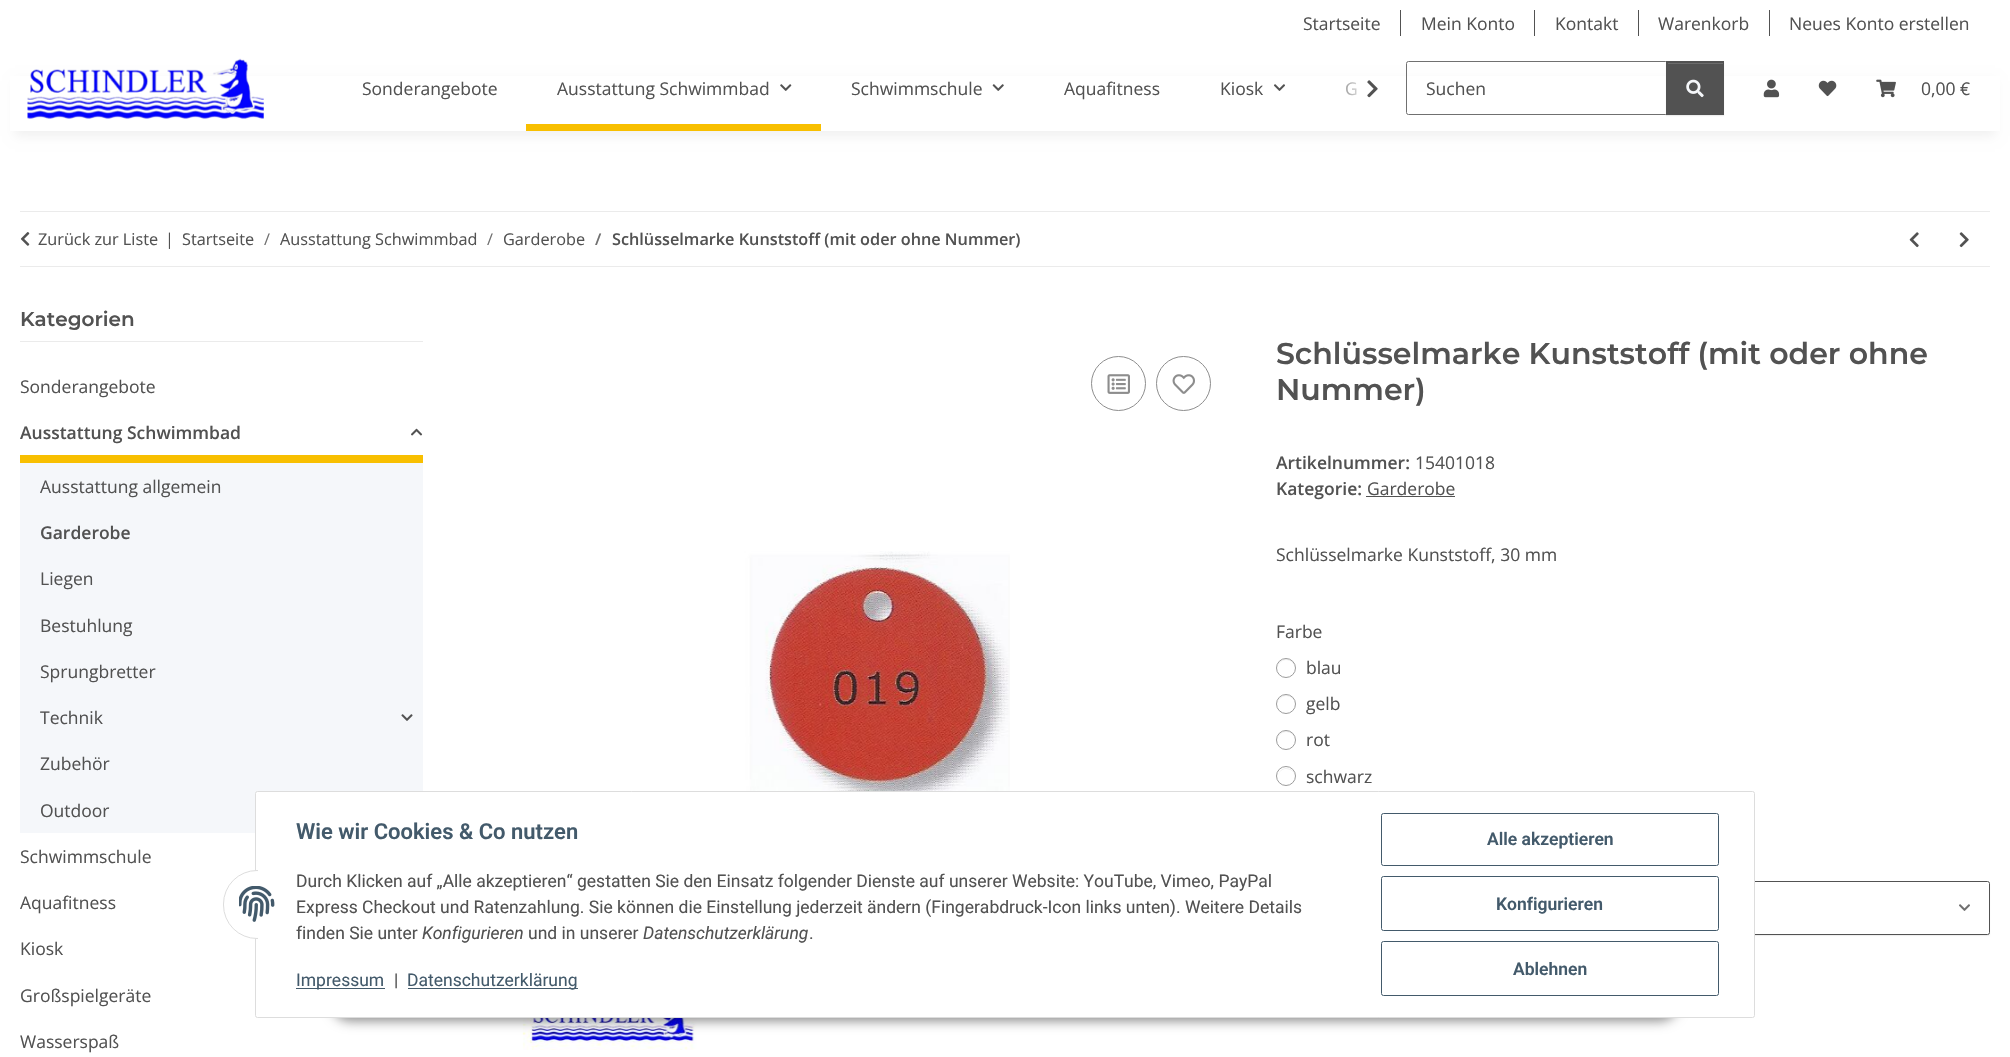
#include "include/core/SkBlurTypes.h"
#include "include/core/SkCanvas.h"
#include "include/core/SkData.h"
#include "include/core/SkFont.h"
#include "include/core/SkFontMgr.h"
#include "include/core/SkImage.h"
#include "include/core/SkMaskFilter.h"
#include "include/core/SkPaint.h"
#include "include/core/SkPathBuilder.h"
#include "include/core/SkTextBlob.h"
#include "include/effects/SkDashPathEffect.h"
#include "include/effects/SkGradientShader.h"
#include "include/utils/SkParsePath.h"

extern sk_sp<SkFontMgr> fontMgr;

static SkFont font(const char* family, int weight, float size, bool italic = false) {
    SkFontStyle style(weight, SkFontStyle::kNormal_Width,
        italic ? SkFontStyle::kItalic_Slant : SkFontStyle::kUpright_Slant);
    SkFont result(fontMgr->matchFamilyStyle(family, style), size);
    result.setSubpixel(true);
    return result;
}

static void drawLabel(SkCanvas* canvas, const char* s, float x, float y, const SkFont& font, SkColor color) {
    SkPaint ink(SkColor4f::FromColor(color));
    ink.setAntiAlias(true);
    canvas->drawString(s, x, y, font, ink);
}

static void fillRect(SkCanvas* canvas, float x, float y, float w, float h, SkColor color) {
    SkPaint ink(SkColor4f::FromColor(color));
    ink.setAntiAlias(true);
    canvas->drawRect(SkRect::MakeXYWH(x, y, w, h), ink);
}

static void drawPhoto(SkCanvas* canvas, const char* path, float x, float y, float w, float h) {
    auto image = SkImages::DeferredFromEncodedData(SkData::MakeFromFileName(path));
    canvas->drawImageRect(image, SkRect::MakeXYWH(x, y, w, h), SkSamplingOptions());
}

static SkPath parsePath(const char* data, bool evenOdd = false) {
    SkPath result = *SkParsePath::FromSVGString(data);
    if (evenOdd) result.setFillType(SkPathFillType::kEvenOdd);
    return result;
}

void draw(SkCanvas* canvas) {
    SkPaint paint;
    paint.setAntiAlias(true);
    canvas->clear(0xFFFFFFFF);
    SkFont font1 = font("Open Sans", 400, 17.5f);
    drawLabel(canvas, "Startseite", 1303, 30, font1, 0xFF525252);
    fillRect(canvas, 1400, 10, 1, 26, 0xFF525252);
    drawLabel(canvas, "Mein Konto", 1421, 30, font1, 0xFF525252);
    fillRect(canvas, 1534, 10, 1, 26, 0xFF525252);
    drawLabel(canvas, "Kontakt", 1555, 30, font1, 0xFF525252);
    fillRect(canvas, 1638, 10, 1, 26, 0xFF525252);
    drawLabel(canvas, "Warenkorb", 1658, 30, font1, 0xFF525252);
    fillRect(canvas, 1769, 10, 1, 26, 0xFF525252);
    drawLabel(canvas, "Neues Konto erstellen", 1789, 30, font1, 0xFF525252);
    paint.setColor(0x0F000000);
    paint.setMaskFilter(SkMaskFilter::MakeBlur(kNormal_SkBlurStyle, 5.5f));
    canvas->drawRect(SkRect::MakeXYWH(15, 81, 1980, 55), paint);
    paint.setMaskFilter(nullptr);
    fillRect(canvas, 10, 76, 1990, 55, 0xFFFFFFFF);
    drawPhoto(canvas, "assets/img1.png", 27, 58, 237, 61);
    drawLabel(canvas, "Sonderangebote", 362, 95, font1, 0xFF525252);
    drawLabel(canvas, "Ausstattung Schwimmbad", 557, 95, font1, 0xFF525252);
    drawPhoto(canvas, "assets/img2.png", 780, 84, 12, 7);
    fillRect(canvas, 526, 124, 295, 7, 0xFFF8BF00);
    drawLabel(canvas, "Schwimmschule", 851, 95, font1, 0xFF525252);
    drawPhoto(canvas, "assets/img3.png", 992, 84, 12, 7);
    drawLabel(canvas, "Aquafitness", 1064, 95, font1, 0xFF525252);
    drawLabel(canvas, "Kiosk", 1220, 95, font1, 0xFF525252);
    drawPhoto(canvas, "assets/img4.png", 1273, 84, 12, 7);
    drawLabel(canvas, "G", 1345, 95, font1, 0xFF525252);
    {
        const SkColor colors[] = {0x03FFFFFF, 0xFFFFFFFF};
        const float stops[] = {0, 0.7f};
        const SkPoint ends[] = {{1326, 89}, {1386, 89}};
        paint.setShader(SkGradientShader::MakeLinear(ends, colors, stops, 2, SkTileMode::kClamp));
        paint.setAlpha(255);
    }
    canvas->drawRect(SkRect::MakeXYWH(1346, 82, 11, 14), paint);
    drawPhoto(canvas, "assets/img5.png", 1367, 80, 11, 18);
    paint.setStroke(true);
    paint.setStrokeWidth(1);
    paint.setShader(nullptr);
    paint.setColor(0xFF707070);
    canvas->drawRoundRect(SkRect::MakeXYWH(1406.5f, 61.5f, 261, 53), 2, 2, paint);
    drawLabel(canvas, "Suchen", 1426, 95, font1, 0xFF525252);
    paint.setStroke(false);
    paint.setColor(0x12000000);
    paint.setMaskFilter(SkMaskFilter::MakeBlur(kNormal_SkBlurStyle, 0.5f));
    canvas->drawRect(SkRect::MakeXYWH(1666, 63, 58, 53), paint);
    paint.setMaskFilter(nullptr);
    fillRect(canvas, 1666, 61, 58, 54, 0xFF525252);
    fillRect(canvas, 1668, 63, 55, 1, 0xFF6C6C6C);
    drawPhoto(canvas, "assets/img6.png", 1686, 79, 18, 19);
    drawPhoto(canvas, "assets/img7.png", 1763, 79, 17, 19);
    drawPhoto(canvas, "assets/img8.png", 1818, 80, 19, 17);
    drawPhoto(canvas, "assets/img9.png", 1876, 79, 20, 19);
    drawLabel(canvas, "0,00 €", 1921, 95, font1, 0xFF525252);
    fillRect(canvas, 20, 211, 1970, 1, 0xFFEBEBEB);
    fillRect(canvas, 20, 266, 1970, 1, 0xFFEBEBEB);
    drawPhoto(canvas, "assets/img10.png", 20, 232, 10, 14);
    SkFont font2 = font("Open Sans", 400, 16.25f);
    drawLabel(canvas, "Zurück zur Liste", 38, 245, font2, 0xFF525252);
    drawLabel(canvas, "|", 165, 245, font2, 0xFF525252);
    drawLabel(canvas, "Startseite", 182, 245, font2, 0xFF525252);
    drawLabel(canvas, "/", 264, 245, font2, 0xFF707070);
    drawLabel(canvas, "Ausstattung Schwimmbad", 280, 245, font2, 0xFF525252);
    drawLabel(canvas, "/", 487, 245, font2, 0xFF707070);
    drawLabel(canvas, "Garderobe", 503, 245, font2, 0xFF525252);
    SkFont font3 = font("Open Sans", 600, 16.25f);
    drawLabel(canvas, "/", 595, 245, font3, 0xFF707070);
    drawLabel(canvas, "Schlüsselmarke Kunststoff (mit oder ohne Nummer)", 612, 245, font3, 0xFF525252);
    drawPhoto(canvas, "assets/img11.png", 1909, 232, 10, 16);
    drawPhoto(canvas, "assets/img12.png", 1959, 232, 10, 16);
    fillRect(canvas, 20, 341, 403, 1, 0xFFEBEBEB);
    SkFont font4 = font("Montserrat", 600, 20);
    drawLabel(canvas, "Kategorien", 20, 326, font4, 0xFF525252);
    drawLabel(canvas, "Sonderangebote", 20, 393, font1, 0xFF525252);
    fillRect(canvas, 20, 455, 403, 8, 0xFFF8BF00);
    SkFont font5 = font("Open Sans", 600, 17.5f);
    drawLabel(canvas, "Ausstattung Schwimmbad", 20, 439, font5, 0xFF525252);
    drawPhoto(canvas, "assets/img13.png", 411, 428, 12, 8);
    fillRect(canvas, 20, 463, 403, 370, 0xFFF5F7FA);
    drawLabel(canvas, "Ausstattung allgemein", 40, 493, font1, 0xFF525252);
    drawLabel(canvas, "Garderobe", 40, 539, font5, 0xFF525252);
    drawLabel(canvas, "Liegen", 40, 585, font1, 0xFF525252);
    drawLabel(canvas, "Bestuhlung", 40, 632, font1, 0xFF525252);
    drawLabel(canvas, "Sprungbretter", 40, 678, font1, 0xFF525252);
    drawLabel(canvas, "Technik", 40, 724, font1, 0xFF525252);
    drawPhoto(canvas, "assets/img14.png", 401, 714, 12, 7);
    drawLabel(canvas, "Zubehör", 40, 770, font1, 0xFF525252);
    drawLabel(canvas, "Outdoor", 40, 817, font1, 0xFF525252);
    drawLabel(canvas, "Schwimmschule", 20, 863, font1, 0xFF525252);
    drawLabel(canvas, "Aquafitness", 20, 909, font1, 0xFF525252);
    drawLabel(canvas, "Kiosk", 20, 955, font1, 0xFF525252);
    drawLabel(canvas, "Großspielgeräte", 20, 1002, font1, 0xFF525252);
    drawLabel(canvas, "Wasserspaß", 20, 1048, font1, 0xFF525252);
    paint.setStroke(true);
    paint.setColor(0xFF8D8D8D);
    canvas->drawCircle(1118.5f, 383.5f, 27, paint);
    drawPhoto(canvas, "assets/img15.png", 1107, 374, 23, 20);
    canvas->drawCircle(1183.5f, 383.5f, 27, paint);
    drawPhoto(canvas, "assets/img16.png", 1172, 374, 23, 20);
    drawPhoto(canvas, "assets/img17.png", 522, 551, 488, 499);
    SkFont font6 = font("Montserrat", 600, 30);
    drawLabel(canvas, "Schlüsselmarke Kunststoff (mit oder ohne", 1276, 364, font6, 0xFF525252);
    drawLabel(canvas, "Nummer)", 1276, 400, font6, 0xFF525252);
    drawLabel(canvas, "Artikelnummer:", 1276, 469, font5, 0xFF525252);
    drawLabel(canvas, "15401018", 1415, 469, font1, 0xFF525252);
    drawLabel(canvas, "Kategorie:", 1276, 495, font5, 0xFF525252);
    drawLabel(canvas, "Garderobe", 1367, 495, font1, 0xFF525252);
    fillRect(canvas, 1366, 496, 89, 1, 0xFF525252);
    drawLabel(canvas, "Schlüsselmarke Kunststoff, 30 mm", 1276, 561, font1, 0xFF525252);
    drawLabel(canvas, "Farbe", 1276, 638, font1, 0xFF525252);
    paint.setStroke(false);
    paint.setColor(0xFFECECEC);
    canvas->drawPath(parsePath("M1286 660C1291.5 660 1294.5 664 1295 668C1296 657.5 1279.5 655.5 1278 666.5C1279 663 1281.5 660 1286 660Z"), paint);
    paint.setStroke(true);
    paint.setColor(0xFF9B9B9B);
    canvas->drawCircle(1286, 668, 9.5f, paint);
    drawLabel(canvas, "blau", 1306, 674, font1, 0xFF525252);
    paint.setStroke(false);
    paint.setColor(0xFFECECEC);
    canvas->drawPath(parsePath("M1286 696C1292 696 1295 700.5 1295 704.5C1295.5 693 1279.5 692 1278 702.5C1279 699 1281.5 696 1286 696Z"), paint);
    paint.setStroke(true);
    paint.setColor(0xFF9B9B9B);
    canvas->drawCircle(1286, 704, 9.5f, paint);
    drawLabel(canvas, "gelb", 1306, 710, font1, 0xFF525252);
    paint.setStroke(false);
    paint.setColor(0xFFECECEC);
    canvas->drawPath(parsePath("M1286 732C1292 732 1295 736.5 1295 740.5C1295.5 729 1279.5 728 1278 738.5C1279 735 1281.5 732 1286 732Z"), paint);
    paint.setStroke(true);
    paint.setColor(0xFF9B9B9B);
    canvas->drawCircle(1286, 740, 9.5f, paint);
    drawLabel(canvas, "rot", 1306, 746, font1, 0xFF525252);
    paint.setStroke(false);
    paint.setColor(0xFFECECEC);
    canvas->drawPath(parsePath("M1286 769C1292 769 1295 773 1295 777C1295.5 767 1281 764.5 1278.5 774.5C1279.5 771.5 1282 769 1286 769Z"), paint);
    paint.setStroke(true);
    paint.setColor(0xFF9B9B9B);
    canvas->drawCircle(1286, 776, 9.5f, paint);
    drawLabel(canvas, "schwarz", 1306, 783, font1, 0xFF525252);
    paint.setStroke(false);
    paint.setColor(0x12000000);
    paint.setMaskFilter(SkMaskFilter::MakeBlur(kNormal_SkBlurStyle, 0.5f));
    canvas->drawRoundRect(SkRect::MakeXYWH(1276, 883, 714, 53), 2.5f, 2.5f, paint);
    paint.setMaskFilter(nullptr);
    paint.setColor(0xFFFFFFFF);
    canvas->drawRoundRect(SkRect::MakeXYWH(1276.5f, 881.5f, 713, 53), 2, 2, paint);
    paint.setStroke(true);
    paint.setColor(0xFF525252);
    canvas->drawRoundRect(SkRect::MakeXYWH(1276.5f, 881.5f, 713, 53), 2, 2, paint);
    drawPhoto(canvas, "assets/img18.png", 1959, 904, 11, 7);
    paint.setStroke(false);
    paint.setColor(0x73000000);
    paint.setMaskFilter(SkMaskFilter::MakeBlur(kNormal_SkBlurStyle, 6));
    canvas->drawRoundRect(SkRect::MakeXYWH(331, 981, 1348, 40), 20, 20, paint);
    paint.setMaskFilter(nullptr);
    paint.setColor(0xFFFFFFFF);
    canvas->drawRoundRect(SkRect::MakeXYWH(255.5f, 791.5f, 1499, 226), 2, 2, paint);
    paint.setStroke(true);
    paint.setColor(0xFFDDDDDD);
    canvas->drawRoundRect(SkRect::MakeXYWH(255.5f, 791.5f, 1499, 226), 2, 2, paint);
    paint.setStroke(false);
    paint.setColor(0xFFFFFFFF);
    canvas->drawRoundRect(SkRect::MakeXYWH(223.5f, 870.5f, 67, 68), 33.5f, 33.5f, paint);
    paint.setStroke(true);
    paint.setColor(0xFFDDDDDD);
    canvas->drawRoundRect(SkRect::MakeXYWH(223.5f, 870.5f, 67, 68), 33.5f, 33.5f, paint);
    fillRect(canvas, 258, 870, 33, 69, 0xFFFFFFFF);
    drawPhoto(canvas, "assets/img19.png", 239, 886, 36, 36);
    SkFont font7 = font("Roboto", 600, 22);
    drawLabel(canvas, "Wie wir Cookies & Co nutzen", 296, 839, font7, 0xFF435A6B);
    SkFont font8 = font("Roboto", 400, 17.5f);
    drawLabel(canvas, "Durch Klicken auf „Alle akzeptieren“ gestatten Sie den Einsatz folgender Dienste auf unserer Website: YouTube, Vimeo, PayPal", 296, 887, font8, 0xFF525252);
    drawLabel(canvas, "Express Checkout und Ratenzahlung. Sie können die Einstellung jederzeit ändern (Fingerabdruck-Icon links unten). Weitere Details", 296, 913, font8, 0xFF525252);
    drawLabel(canvas, "finden Sie unter", 296, 939, font8, 0xFF525252);
    SkFont font9 = font("Roboto", 400, 17.5f, true);
    drawLabel(canvas, "Konfigurieren", 422, 939, font9, 0xFF525252);
    drawLabel(canvas, "und in unserer", 528, 939, font8, 0xFF525252);
    drawLabel(canvas, "Datenschutzerklärung", 643, 939, font9, 0xFF525252);
    drawLabel(canvas, ".", 809, 939, font8, 0xFF525252);
    fillRect(canvas, 296, 988, 89, 1, 0xFF435A6B);
    drawLabel(canvas, "Impressum", 296, 986, font8, 0xFF435A6B);
    drawLabel(canvas, "|", 394, 986, font8, 0xFF525252);
    fillRect(canvas, 408, 988, 170, 1, 0xFF435A6B);
    drawLabel(canvas, "Datenschutzerklärung", 407, 986, font8, 0xFF435A6B);
    paint.setColor(0xFF435A6B);
    canvas->drawRoundRect(SkRect::MakeXYWH(1381.5f, 813.5f, 337, 52), 2, 2, paint);
    SkFont font10 = font("Roboto", 600, 17.5f);
    drawLabel(canvas, "Alle akzeptieren", 1487, 845, font10, 0xFF435A6B);
    canvas->drawRoundRect(SkRect::MakeXYWH(1381.5f, 876.5f, 337, 54), 2, 2, paint);
    drawLabel(canvas, "Konfigurieren", 1496, 910, font10, 0xFF435A6B);
    canvas->drawRoundRect(SkRect::MakeXYWH(1381.5f, 941.5f, 337, 54), 2, 2, paint);
    drawLabel(canvas, "Ablehnen", 1513, 975, font10, 0xFF435A6B);
}
